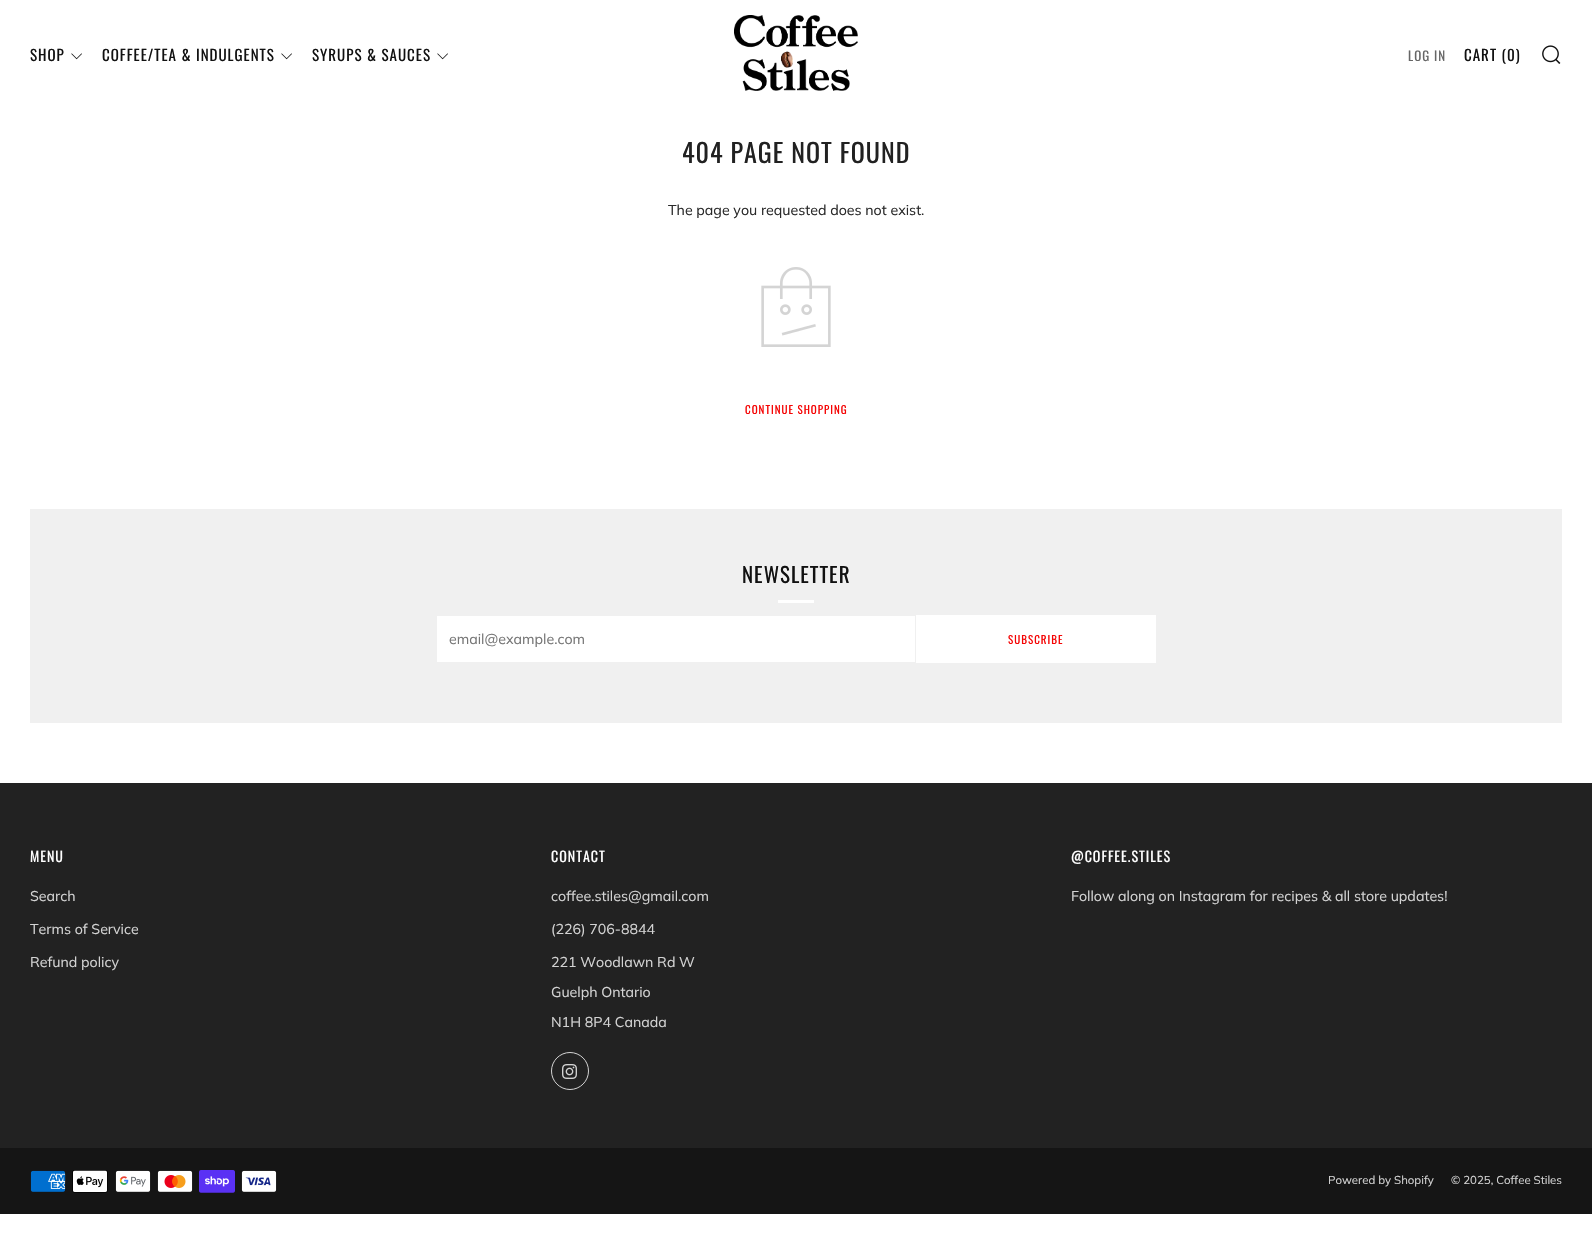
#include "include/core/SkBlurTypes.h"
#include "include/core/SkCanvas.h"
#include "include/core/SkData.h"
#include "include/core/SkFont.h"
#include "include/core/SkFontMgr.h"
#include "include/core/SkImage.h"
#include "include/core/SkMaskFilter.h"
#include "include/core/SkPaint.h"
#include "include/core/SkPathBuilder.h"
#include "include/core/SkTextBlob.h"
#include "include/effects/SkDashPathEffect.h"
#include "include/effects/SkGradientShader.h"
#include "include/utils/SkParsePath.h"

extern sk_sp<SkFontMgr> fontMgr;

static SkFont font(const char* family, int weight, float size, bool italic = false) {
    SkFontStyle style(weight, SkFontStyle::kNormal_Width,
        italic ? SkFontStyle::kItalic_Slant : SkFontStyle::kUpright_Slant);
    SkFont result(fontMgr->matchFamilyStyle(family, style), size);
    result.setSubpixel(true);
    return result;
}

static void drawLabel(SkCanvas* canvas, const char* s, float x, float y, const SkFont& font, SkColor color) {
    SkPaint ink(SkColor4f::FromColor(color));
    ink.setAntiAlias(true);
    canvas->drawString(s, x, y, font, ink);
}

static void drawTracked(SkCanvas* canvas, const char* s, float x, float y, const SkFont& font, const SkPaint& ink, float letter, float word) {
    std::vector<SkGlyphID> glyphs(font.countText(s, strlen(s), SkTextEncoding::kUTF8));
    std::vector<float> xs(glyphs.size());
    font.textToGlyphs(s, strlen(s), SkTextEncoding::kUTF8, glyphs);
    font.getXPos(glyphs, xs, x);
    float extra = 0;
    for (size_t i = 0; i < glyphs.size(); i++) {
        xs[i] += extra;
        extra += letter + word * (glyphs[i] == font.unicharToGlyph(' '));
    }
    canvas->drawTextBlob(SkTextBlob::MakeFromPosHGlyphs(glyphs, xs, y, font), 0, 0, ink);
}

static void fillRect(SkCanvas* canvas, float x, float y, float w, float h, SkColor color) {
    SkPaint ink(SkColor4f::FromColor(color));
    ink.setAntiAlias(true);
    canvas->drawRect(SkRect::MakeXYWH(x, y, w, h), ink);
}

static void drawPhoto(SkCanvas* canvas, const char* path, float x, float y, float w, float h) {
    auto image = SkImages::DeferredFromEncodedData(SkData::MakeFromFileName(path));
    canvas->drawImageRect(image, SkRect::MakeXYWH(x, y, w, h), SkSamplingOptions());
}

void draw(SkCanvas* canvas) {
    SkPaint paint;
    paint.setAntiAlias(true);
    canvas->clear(0xFFFFFFFF);
    drawPhoto(canvas, "assets/img1.png", 734, 15, 124, 76);
    SkFont font1 = font("Oswald", 400, 15);
    paint.setColor(0xFF111111);
    drawTracked(canvas, "SHOP", 30, 61, font1, paint, 1, 0);
    drawPhoto(canvas, "assets/img2.png", 71, 53, 11, 7);
    drawTracked(canvas, "COFFEE/TEA & INDULGENTS", 102, 61, font1, paint, 1, 0);
    drawPhoto(canvas, "assets/img2.png", 281, 53, 11, 7);
    drawTracked(canvas, "SYRUPS & SAUCES", 312, 61, font1, paint, 1, 0);
    drawPhoto(canvas, "assets/img2.png", 437, 53, 11, 7);
    SkFont font2 = font("Oswald", 400, 13);
    paint.setColor(0xFF666666);
    drawTracked(canvas, "LOG IN", 1408, 61, font2, paint, 1, 0);
    paint.setColor(0xFF111111);
    drawTracked(canvas, "CART (0)", 1464, 61, font1, paint, 1, 0);
    drawPhoto(canvas, "assets/img3.png", 1542, 45, 19, 19);
    SkFont font3 = font("Oswald", 400, 26);
    paint.setColor(0xFF212121);
    drawTracked(canvas, "404 PAGE NOT FOUND", 682, 163, font3, paint, 1, 0);
    SkFont font4 = font("Muli", 400, 14.2f);
    drawLabel(canvas, "The page you requested does not exist.", 668, 215, font4, 0xFF2A2A2A);
    drawPhoto(canvas, "assets/img4.png", 761, 267, 70, 80);
    SkFont font5 = font("Oswald", 400, 11);
    paint.setColor(0xFFF50404);
    drawTracked(canvas, "CONTINUE SHOPPING", 745, 414, font5, paint, 1, 0);
    fillRect(canvas, 30, 509, 1532, 214, 0xFFF0F0F0);
    SkFont font6 = font("Oswald", 400, 21);
    paint.setColor(0xFF111111);
    drawTracked(canvas, "NEWSLETTER", 742, 583, font6, paint, 1, 0);
    fillRect(canvas, 778, 600, 36, 3, 0xFFFFFFFF);
    fillRect(canvas, 437, 616, 478, 46, 0xFFFFFFFF);
    drawLabel(canvas, "email@example.com", 449, 644, font4, 0xFF757575);
    fillRect(canvas, 916, 615, 240, 48, 0xFFFFFFFF);
    paint.setColor(0xFFF50404);
    drawTracked(canvas, "SUBSCRIBE", 1008, 644, font5, paint, 1, 0);
    fillRect(canvas, 0, 783, 1592, 365, 0xFF222222);
    SkFont font7 = font("Oswald", 400, 14);
    paint.setColor(0xFFFFFFFF);
    drawTracked(canvas, "MENU", 30, 862, font7, paint, 1, 0);
    drawLabel(canvas, "Search", 30, 901, font4, 0xFFD3D3D3);
    drawLabel(canvas, "Terms of Service", 30, 934, font4, 0xFFD3D3D3);
    drawLabel(canvas, "Refund policy", 30, 967, font4, 0xFFD3D3D3);
    drawTracked(canvas, "CONTACT", 551, 862, font7, paint, 1, 0);
    drawLabel(canvas, "coffee.stiles@gmail.com", 551, 901, font4, 0xFFD3D3D3);
    drawLabel(canvas, "(226) 706-8844", 551, 934, font4, 0xFFD3D3D3);
    drawLabel(canvas, "221 Woodlawn Rd W", 551, 967, font4, 0xFFD3D3D3);
    drawLabel(canvas, "Guelph Ontario", 551, 997, font4, 0xFFD3D3D3);
    drawLabel(canvas, "N1H 8P4 Canada", 551, 1027, font4, 0xFFD3D3D3);
    paint.setStroke(true);
    paint.setStrokeWidth(1);
    paint.setColor(0xFFD3D3D3);
    canvas->drawCircle(570, 1071, 18.5f, paint);
    drawPhoto(canvas, "assets/img5.png", 562, 1064, 15, 15);
    paint.setStroke(false);
    paint.setColor(0xFFFFFFFF);
    drawTracked(canvas, "@COFFEE.STILES", 1071, 862, font7, paint, 1, 0);
    drawLabel(canvas, "Follow along on Instagram for recipes & all store updates!", 1071, 901, font4, 0xFFD3D3D3);
    fillRect(canvas, 0, 1148, 1592, 66, 0xFF151515);
    drawPhoto(canvas, "assets/img6.png", 30, 1170, 36, 22);
    drawPhoto(canvas, "assets/img7.png", 72, 1170, 36, 23);
    drawPhoto(canvas, "assets/img8.png", 115, 1170, 36, 22);
    drawPhoto(canvas, "assets/img9.png", 157, 1170, 36, 22);
    drawPhoto(canvas, "assets/img10.png", 199, 1170, 36, 23);
    drawPhoto(canvas, "assets/img11.png", 241, 1170, 36, 22);
    SkFont font8 = font("Muli", 400, 11.4f);
    drawLabel(canvas, "Powered by Shopify", 1328, 1184, font8, 0xFFD3D3D3);
    drawLabel(canvas, "© 2025, Coffee Stiles", 1451, 1184, font8, 0xFFD3D3D3);
}
